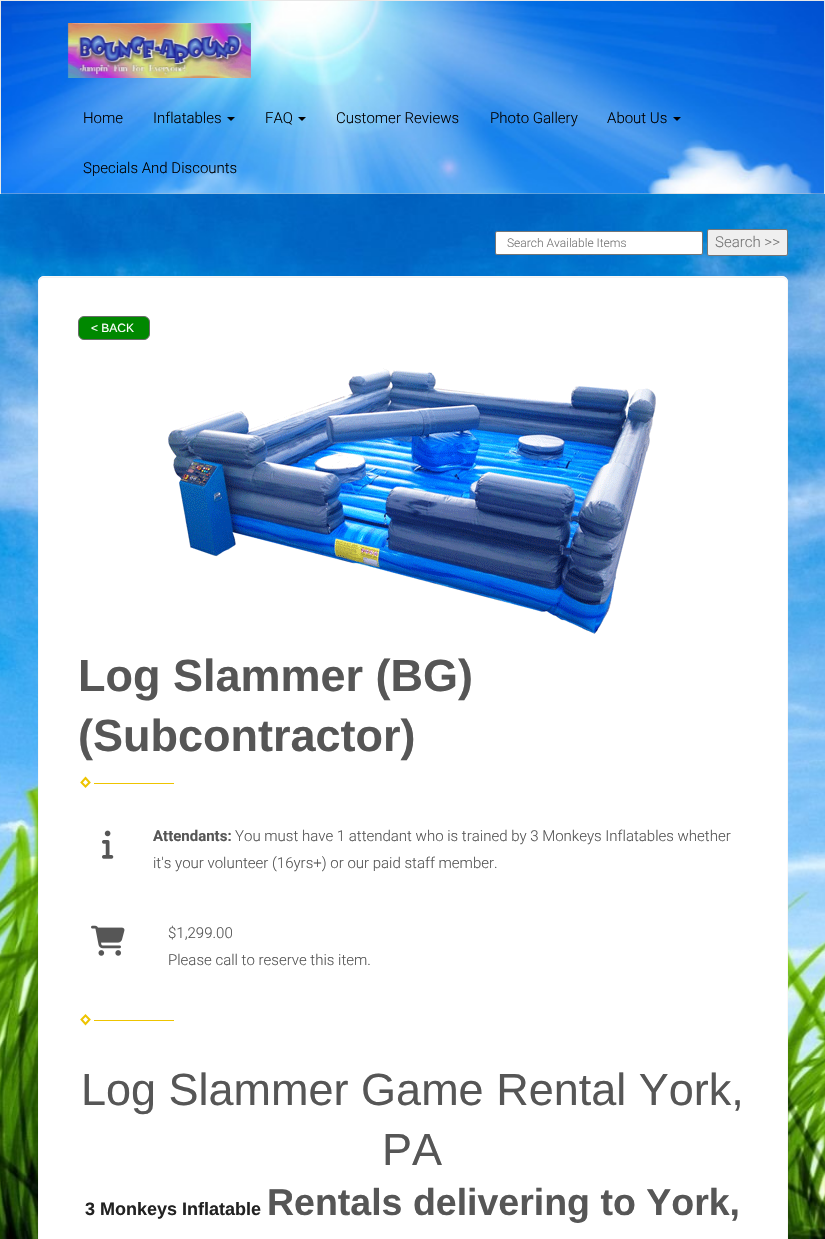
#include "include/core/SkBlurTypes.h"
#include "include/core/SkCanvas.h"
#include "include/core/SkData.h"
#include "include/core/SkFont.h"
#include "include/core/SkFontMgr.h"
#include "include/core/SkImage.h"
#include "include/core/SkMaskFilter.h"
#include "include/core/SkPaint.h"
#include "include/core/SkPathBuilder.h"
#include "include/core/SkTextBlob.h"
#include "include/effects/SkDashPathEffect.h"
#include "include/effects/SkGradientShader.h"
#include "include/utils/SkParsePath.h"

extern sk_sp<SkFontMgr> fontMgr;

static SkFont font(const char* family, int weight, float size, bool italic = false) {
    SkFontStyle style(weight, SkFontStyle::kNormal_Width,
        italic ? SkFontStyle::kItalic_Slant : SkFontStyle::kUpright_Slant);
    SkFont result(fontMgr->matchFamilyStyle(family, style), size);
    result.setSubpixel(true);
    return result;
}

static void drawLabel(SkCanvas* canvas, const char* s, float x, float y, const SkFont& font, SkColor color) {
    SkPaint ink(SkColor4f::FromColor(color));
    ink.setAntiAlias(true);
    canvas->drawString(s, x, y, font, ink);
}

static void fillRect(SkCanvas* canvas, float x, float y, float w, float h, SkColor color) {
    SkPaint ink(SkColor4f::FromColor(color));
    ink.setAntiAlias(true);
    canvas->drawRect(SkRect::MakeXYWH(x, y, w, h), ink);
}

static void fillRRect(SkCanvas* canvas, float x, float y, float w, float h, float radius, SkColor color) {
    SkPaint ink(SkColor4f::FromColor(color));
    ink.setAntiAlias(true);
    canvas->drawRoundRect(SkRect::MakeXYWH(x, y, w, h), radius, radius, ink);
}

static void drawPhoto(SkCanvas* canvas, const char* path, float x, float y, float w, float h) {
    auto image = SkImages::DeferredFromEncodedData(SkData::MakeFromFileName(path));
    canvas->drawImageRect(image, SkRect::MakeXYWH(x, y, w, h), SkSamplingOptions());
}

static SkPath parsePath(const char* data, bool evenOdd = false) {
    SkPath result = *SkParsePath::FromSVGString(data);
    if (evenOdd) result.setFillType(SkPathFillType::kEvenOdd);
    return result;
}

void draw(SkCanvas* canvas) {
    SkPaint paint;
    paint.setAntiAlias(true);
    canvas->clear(0xFFFFFFFF);
    drawPhoto(canvas, "assets/img1.png", 0, 194, 825, 1045);
    drawPhoto(canvas, "assets/img2.png", 1, 1, 823, 193);
    paint.setStroke(true);
    paint.setStrokeWidth(1);
    paint.setColor(0x66C5C5C5);
    canvas->drawRect(SkRect::MakeXYWH(0.5f, 0.5f, 824, 193), paint);
    drawPhoto(canvas, "assets/img3.png", 67, 23, 184, 55);
    SkFont font1 = font("Roboto", 300, 15);
    drawLabel(canvas, "Home", 83, 123, font1, 0xFF000000);
    drawLabel(canvas, "Inflatables", 153, 123, font1, 0xFF000000);
    paint.setStroke(false);
    paint.setColor(0xFF000000);
    canvas->drawPath(parsePath("M227 117H235L231 121Z"), paint);
    drawLabel(canvas, "FAQ", 265, 123, font1, 0xFF000000);
    canvas->drawPath(parsePath("M298 117H306L302 121Z"), paint);
    drawLabel(canvas, "Customer Reviews", 336, 123, font1, 0xFF000000);
    drawLabel(canvas, "Photo Gallery", 490, 123, font1, 0xFF000000);
    drawLabel(canvas, "About Us", 607, 123, font1, 0xFF000000);
    canvas->drawPath(parsePath("M673 117H681L677 121Z"), paint);
    drawLabel(canvas, "Specials And Discounts", 83, 173, font1, 0xFF000000);
    paint.setColor(0xFFFFFFFF);
    canvas->drawRoundRect(SkRect::MakeXYWH(495.5f, 231.5f, 207, 23), 1.5f, 1.5f, paint);
    paint.setStroke(true);
    paint.setColor(0xFF767676);
    canvas->drawRoundRect(SkRect::MakeXYWH(495.5f, 231.5f, 207, 23), 1.5f, 1.5f, paint);
    SkFont font2 = font("Roboto", 300, 12);
    drawLabel(canvas, "Search Available Items", 507, 247, font2, 0xFF757575);
    paint.setStroke(false);
    paint.setColor(0xFFEFEFEF);
    canvas->drawRoundRect(SkRect::MakeXYWH(707.5f, 229.5f, 80, 26), 1.5f, 1.5f, paint);
    paint.setStroke(true);
    paint.setColor(0xFF767676);
    canvas->drawRoundRect(SkRect::MakeXYWH(707.5f, 229.5f, 80, 26), 1.5f, 1.5f, paint);
    drawLabel(canvas, "Search >>", 715, 247, font1, 0xFF757575);
    fillRRect(canvas, 38, 276, 750, 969, 6, 0xFFFFFFFF);
    paint.setStroke(false);
    paint.setColor(0xFFF2F2F2);
    canvas->drawPath(parsePath("M44 278H782C785 278 787 280 787 283V282C787 279 785 277 782 277H44C41 277 39 279 39 282V283C39 280 41 278 44 278Z"), paint);
    paint.setStroke(true);
    paint.setColor(0xFFF9F8F8);
    canvas->drawRoundRect(SkRect::MakeXYWH(38.5f, 276.5f, 749, 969), 5.5f, 5.5f, paint);
    paint.setStroke(false);
    paint.setColor(0xFF008800);
    canvas->drawRoundRect(SkRect::MakeXYWH(78.5f, 316.5f, 71, 23), 5.5f, 5.5f, paint);
    paint.setStroke(true);
    paint.setColor(0xFF6B6B6B);
    canvas->drawRoundRect(SkRect::MakeXYWH(78.5f, 316.5f, 71, 23), 5.5f, 5.5f, paint);
    SkFont font3 = font("Liberation Sans", 400, 12);
    drawLabel(canvas, "< BACK", 91, 332, font3, 0xFFFFFFFF);
    drawPhoto(canvas, "assets/img4.png", 168, 368, 488, 266);
    SkFont font4 = font("Liberation Sans", 700, 45);
    drawLabel(canvas, "Log Slammer (BG)", 78, 691, font4, 0xFF565656);
    drawLabel(canvas, "(Subcontractor)", 78, 751, font4, 0xFF565656);
    paint.setStrokeWidth(2);
    paint.setColor(0xFFEEC400);
    canvas->drawPath(parsePath("M85.5 778L89.5 782.5L85.5 786.5L81.5 782.5Z"), paint);
    fillRect(canvas, 94, 783, 80, 1, 0xFFEEC400);
    drawPhoto(canvas, "assets/img5.png", 102, 830, 12, 29);
    SkFont font5 = font("Roboto", 700, 15);
    drawLabel(canvas, "Attendants:", 153, 841, font5, 0xFF565656);
    drawLabel(canvas, "You must have 1 attendant who is trained by 3 Monkeys Inflatables whether", 235, 841, font1, 0xFF565656);
    drawLabel(canvas, "it's your volunteer (16yrs+) or our paid staff member.", 153, 868, font1, 0xFF565656);
    drawPhoto(canvas, "assets/img6.png", 91, 925, 34, 31);
    drawLabel(canvas, "$1,299.00", 168, 938, font1, 0xFF565656);
    drawLabel(canvas, "Please call to reserve this item.", 168, 965, font1, 0xFF565656);
    canvas->drawPath(parsePath("M85.5 1015.5L89.5 1019.5L85.5 1024L81.5 1019.5Z"), paint);
    fillRect(canvas, 94, 1020, 80, 1, 0xFFEEC400);
    SkFont font6 = font("Liberation Sans", 400, 45);
    drawLabel(canvas, "Log Slammer Game Rental York,", 81, 1105, font6, 0xFF565656);
    drawLabel(canvas, "PA", 382, 1165, font6, 0xFF565656);
    SkFont font7 = font("Liberation Sans", 700, 18);
    drawLabel(canvas, "3 Monkeys Inflatable", 85, 1215, font7, 0xFF222222);
    SkFont font8 = font("Liberation Sans", 700, 37.5f);
    drawLabel(canvas, "Rentals delivering to York,", 267, 1215, font8, 0xFF565656);
}
